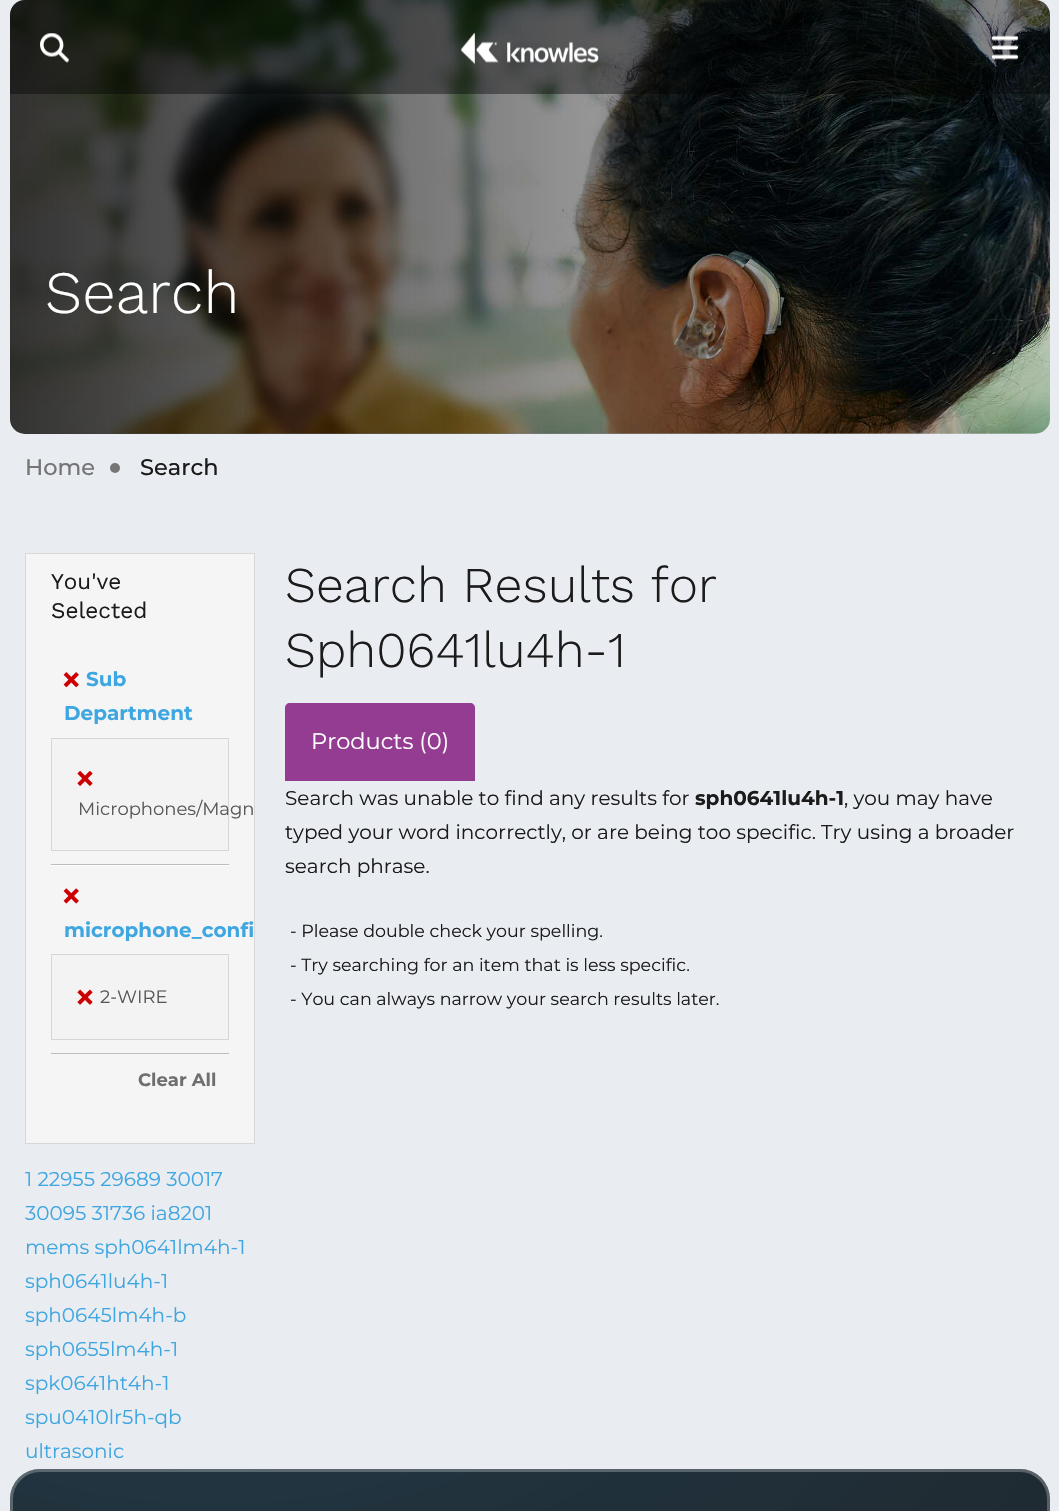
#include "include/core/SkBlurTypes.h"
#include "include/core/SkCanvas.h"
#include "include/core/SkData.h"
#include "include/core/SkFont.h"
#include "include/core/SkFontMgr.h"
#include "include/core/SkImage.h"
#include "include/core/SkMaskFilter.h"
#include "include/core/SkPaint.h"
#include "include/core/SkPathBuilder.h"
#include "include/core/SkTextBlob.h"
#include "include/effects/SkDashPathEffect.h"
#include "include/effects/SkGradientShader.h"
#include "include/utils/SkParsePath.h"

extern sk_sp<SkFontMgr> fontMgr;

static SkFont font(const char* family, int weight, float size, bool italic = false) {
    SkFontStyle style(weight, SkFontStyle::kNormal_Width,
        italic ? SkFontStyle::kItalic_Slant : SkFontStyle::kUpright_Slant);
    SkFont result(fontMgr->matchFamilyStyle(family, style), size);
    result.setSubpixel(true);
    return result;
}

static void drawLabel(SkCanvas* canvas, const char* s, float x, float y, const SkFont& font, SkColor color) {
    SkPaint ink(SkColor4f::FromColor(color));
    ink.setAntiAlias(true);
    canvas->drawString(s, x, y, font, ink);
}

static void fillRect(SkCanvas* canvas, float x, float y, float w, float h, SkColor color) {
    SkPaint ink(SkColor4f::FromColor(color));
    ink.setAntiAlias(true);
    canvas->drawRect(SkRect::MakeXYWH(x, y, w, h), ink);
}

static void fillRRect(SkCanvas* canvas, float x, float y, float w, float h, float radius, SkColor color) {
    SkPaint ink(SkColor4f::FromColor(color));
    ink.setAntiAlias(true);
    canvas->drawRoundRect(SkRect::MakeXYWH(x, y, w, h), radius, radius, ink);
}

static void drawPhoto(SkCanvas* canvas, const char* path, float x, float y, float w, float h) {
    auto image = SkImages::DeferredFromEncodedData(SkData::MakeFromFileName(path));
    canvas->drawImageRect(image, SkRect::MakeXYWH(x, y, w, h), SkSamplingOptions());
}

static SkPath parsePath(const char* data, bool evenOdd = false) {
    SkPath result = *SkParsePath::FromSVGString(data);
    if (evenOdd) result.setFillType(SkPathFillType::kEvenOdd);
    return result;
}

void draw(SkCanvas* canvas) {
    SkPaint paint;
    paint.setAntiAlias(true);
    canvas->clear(0xFFE9ECF0);
    drawPhoto(canvas, "assets/img4.png", 10, 0, 1040, 434);
    {
        const SkColor colors[] = {0xCC000000, 0x1A000000};
        const float stops[] = {0, 1};
        const SkPoint ends[] = {{10, 217}, {1050, 217}};
        paint.setShader(SkGradientShader::MakeLinear(ends, colors, stops, 2, SkTileMode::kClamp));
        paint.setAlpha(255);
    }
    canvas->drawRoundRect(SkRect::MakeXYWH(10, 0, 1040, 434), 15, 15, paint);
    paint.setShader(nullptr);
    paint.setColor(0x66000000);
    canvas->drawPath(parsePath("M25 0H1035C1043.5 0 1050 6.5 1050 15V94H10V15C10 6.5 16.5 0 25 0Z"), paint);
    drawPhoto(canvas, "assets/img1.png", 40, 33, 29, 30);
    drawPhoto(canvas, "assets/img2.png", 461, 33, 138, 32);
    drawPhoto(canvas, "assets/img3.png", 991, 35, 28, 25);
    SkFont font1 = font("Work Sans", 300, 60);
    drawLabel(canvas, "Search", 45, 313, font1, 0xFFFFFFFF);
    SkFont font2 = font("Montserrat", 500, 22.5f);
    drawLabel(canvas, "Home", 25, 475, font2, 0xFF757575);
    paint.setColor(0xFF757575);
    canvas->drawCircle(115, 468, 5, paint);
    drawLabel(canvas, "Search", 140, 475, font2, 0xFF1B1B1C);
    paint.setColor(0xFFF5F5F6);
    canvas->drawRect(SkRect::MakeXYWH(25.5f, 553.5f, 229, 590), paint);
    paint.setStroke(true);
    paint.setStrokeWidth(1);
    paint.setColor(0xFFD7D7D7);
    canvas->drawRect(SkRect::MakeXYWH(25.5f, 553.5f, 229, 590), paint);
    SkFont font3 = font("Work Sans", 400, 22.5f);
    drawLabel(canvas, "You've", 51, 589, font3, 0xFF1B1B1C);
    drawLabel(canvas, "Selected", 51, 618, font3, 0xFF1B1B1C);
    fillRect(canvas, 51, 864, 178, 1, 0xFFBDBEBE);
    drawPhoto(canvas, "assets/img5.png", 63, 672, 16, 16);
    SkFont font4 = font("Montserrat", 700, 20);
    drawLabel(canvas, "Sub", 86, 686, font4, 0xFF3EA6E1);
    drawLabel(canvas, "Department", 64, 720, font4, 0xFF3EA6E1);
    paint.setStroke(false);
    paint.setColor(0xFFF3F3F3);
    canvas->drawRect(SkRect::MakeXYWH(51.5f, 738.5f, 177, 112), paint);
    paint.setStroke(true);
    paint.setColor(0xFFD6D6D6);
    canvas->drawRect(SkRect::MakeXYWH(51.5f, 738.5f, 177, 112), paint);
    drawPhoto(canvas, "assets/img6.png", 77, 771, 16, 15);
    SkFont font5 = font("Montserrat", 400, 18);
    drawLabel(canvas, "Microphones/Magn", 78, 815, font5, 0xFF58585A);
    fillRect(canvas, 51, 865, 178, 1, 0xFFFFFFFF);
    fillRect(canvas, 51, 1053, 178, 1, 0xFFBDBEBE);
    drawPhoto(canvas, "assets/img7.png", 63, 888, 16, 16);
    drawLabel(canvas, "microphone_confi", 64, 937, font4, 0xFF3EA6E1);
    paint.setStroke(false);
    paint.setColor(0xFFF3F3F3);
    canvas->drawRect(SkRect::MakeXYWH(51.5f, 954.5f, 177, 85), paint);
    paint.setStroke(true);
    paint.setColor(0xFFD6D6D6);
    canvas->drawRect(SkRect::MakeXYWH(51.5f, 954.5f, 177, 85), paint);
    drawPhoto(canvas, "assets/img8.png", 77, 989, 16, 16);
    drawLabel(canvas, "2-WIRE", 100, 1003, font5, 0xFF58585A);
    SkFont font6 = font("Montserrat", 700, 18);
    drawLabel(canvas, "Clear All", 138, 1086, font6, 0xFF6F6F6F);
    SkFont font7 = font("Montserrat", 400, 20);
    drawLabel(canvas, "1 22955 29689 30017", 25, 1186, font7, 0xFF3EA6E1);
    drawLabel(canvas, "30095 31736 ia8201", 25, 1220, font7, 0xFF3EA6E1);
    drawLabel(canvas, "mems sph0641lm4h-1", 25, 1254, font7, 0xFF3EA6E1);
    drawLabel(canvas, "sph0641lu4h-1", 25, 1288, font7, 0xFF3EA6E1);
    drawLabel(canvas, "sph0645lm4h-b", 25, 1322, font7, 0xFF3EA6E1);
    drawLabel(canvas, "sph0655lm4h-1", 25, 1356, font7, 0xFF3EA6E1);
    drawLabel(canvas, "spk0641ht4h-1", 25, 1390, font7, 0xFF3EA6E1);
    drawLabel(canvas, "spu0410lr5h-qb", 25, 1424, font7, 0xFF3EA6E1);
    drawLabel(canvas, "ultrasonic", 25, 1458, font7, 0xFF3EA6E1);
    SkFont font8 = font("Work Sans", 300, 50);
    drawLabel(canvas, "Search Results for", 285, 602, font8, 0xFF1B1B1C);
    drawLabel(canvas, "Sph0641lu4h-1", 285, 667, font8, 0xFF1B1B1C);
    paint.setStroke(false);
    paint.setColor(0xFF933C91);
    canvas->drawPath(parsePath("M290 703H470C473 703 475 705 475 708V781H285V708C285 705 287 703 290 703Z"), paint);
    SkFont font9 = font("Montserrat", 400, 22.5f);
    drawLabel(canvas, "Products (0)", 311, 749, font9, 0xFFFFFFFF);
    drawLabel(canvas, "Search was unable to find any results for", 285, 805, font7, 0xFF1B1B1C);
    drawLabel(canvas, "sph0641lu4h-1", 695, 805, font4, 0xFF1B1B1C);
    drawLabel(canvas, ", you may have", 844, 805, font7, 0xFF1B1B1C);
    drawLabel(canvas, "typed your word incorrectly, or are being too specific. Try using a broader", 285, 839, font7, 0xFF1B1B1C);
    drawLabel(canvas, "search phrase.", 285, 873, font7, 0xFF1B1B1C);
    SkFont font10 = font("Montserrat", 400, 17.5f);
    drawLabel(canvas, "- Please double check your spelling.", 290, 937, font10, 0xFF1B1B1C);
    drawLabel(canvas, "- Try searching for an item that is less specific.", 290, 971, font10, 0xFF1B1B1C);
    drawLabel(canvas, "- You can always narrow your search results later.", 290, 1005, font10, 0xFF1B1B1C);
    fillRRect(canvas, 10, 1469, 1040, 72, 30, 0xFF1B1B1C);
    {
        const SkColor colors[] = {0x333EA6E1, 0x003EA6E1};
        const float stops[] = {0, 1};
        SkMatrix m = SkMatrix::Translate(217, 1386).preScale(1986, 800);
        paint.setShader(SkGradientShader::MakeRadial({0, 0}, 1, colors, stops, 2, SkTileMode::kClamp, 0, &m));
        paint.setAlpha(255);
    }
    canvas->drawRoundRect(SkRect::MakeXYWH(10, 1469, 1040, 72), 30, 30, paint);
    paint.setStroke(true);
    paint.setStrokeWidth(3);
    paint.setShader(nullptr);
    paint.setColor(0x40FFFFFF);
    canvas->drawRoundRect(SkRect::MakeXYWH(11.5f, 1470.5f, 1037, 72), 28.5f, 28.5f, paint);
}
